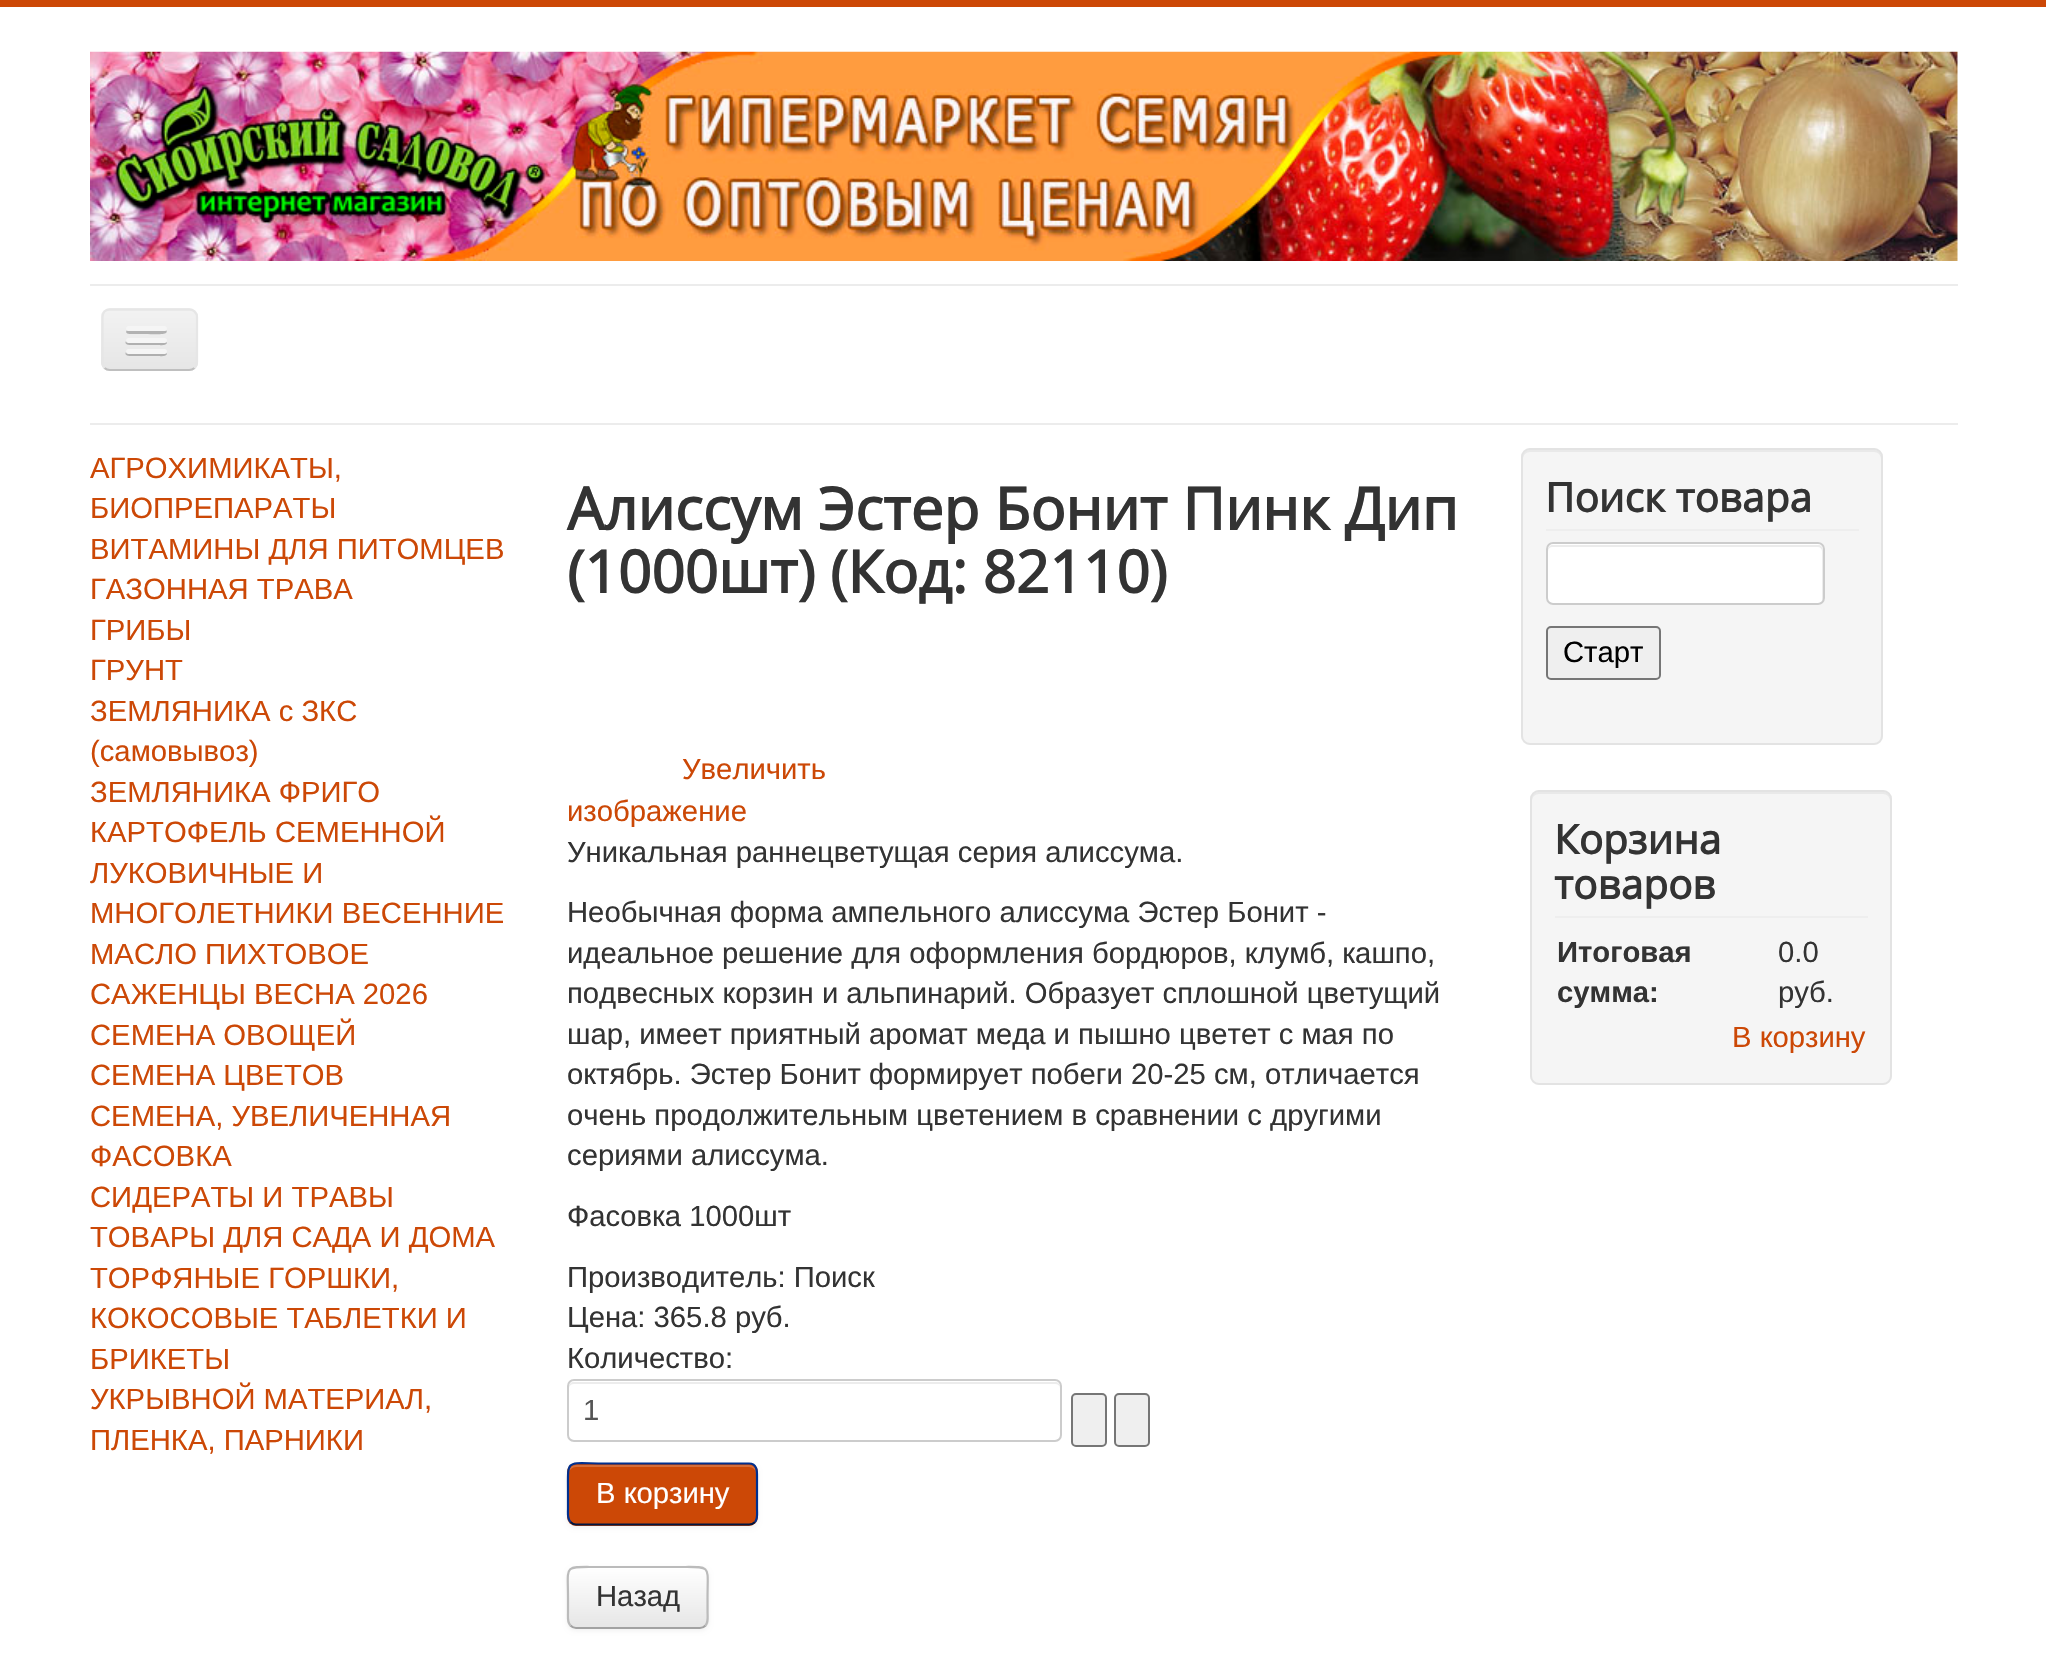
#include "include/core/SkBlurTypes.h"
#include "include/core/SkCanvas.h"
#include "include/core/SkData.h"
#include "include/core/SkFont.h"
#include "include/core/SkFontMgr.h"
#include "include/core/SkImage.h"
#include "include/core/SkMaskFilter.h"
#include "include/core/SkPaint.h"
#include "include/core/SkPathBuilder.h"
#include "include/core/SkTextBlob.h"
#include "include/effects/SkDashPathEffect.h"
#include "include/effects/SkGradientShader.h"
#include "include/utils/SkParsePath.h"

extern sk_sp<SkFontMgr> fontMgr;

static SkFont font(const char* family, int weight, float size, bool italic = false) {
    SkFontStyle style(weight, SkFontStyle::kNormal_Width,
        italic ? SkFontStyle::kItalic_Slant : SkFontStyle::kUpright_Slant);
    SkFont result(fontMgr->matchFamilyStyle(family, style), size);
    result.setSubpixel(true);
    return result;
}

static void drawLabel(SkCanvas* canvas, const char* s, float x, float y, const SkFont& font, SkColor color) {
    SkPaint ink(SkColor4f::FromColor(color));
    ink.setAntiAlias(true);
    canvas->drawString(s, x, y, font, ink);
}

static void fillRect(SkCanvas* canvas, float x, float y, float w, float h, SkColor color) {
    SkPaint ink(SkColor4f::FromColor(color));
    ink.setAntiAlias(true);
    canvas->drawRect(SkRect::MakeXYWH(x, y, w, h), ink);
}

static void fillRRect(SkCanvas* canvas, float x, float y, float w, float h, float radius, SkColor color) {
    SkPaint ink(SkColor4f::FromColor(color));
    ink.setAntiAlias(true);
    canvas->drawRoundRect(SkRect::MakeXYWH(x, y, w, h), radius, radius, ink);
}

static void drawPhoto(SkCanvas* canvas, const char* path, float x, float y, float w, float h) {
    auto image = SkImages::DeferredFromEncodedData(SkData::MakeFromFileName(path));
    canvas->drawImageRect(image, SkRect::MakeXYWH(x, y, w, h), SkSamplingOptions());
}

static SkPath parsePath(const char* data, bool evenOdd = false) {
    SkPath result = *SkParsePath::FromSVGString(data);
    if (evenOdd) result.setFillType(SkPathFillType::kEvenOdd);
    return result;
}

void draw(SkCanvas* canvas) {
    SkPaint paint;
    paint.setAntiAlias(true);
    canvas->clear(0xFFFFFFFF);
    fillRect(canvas, 0, 0, 2046, 7, 0xFFCC4806);
    drawPhoto(canvas, "assets/img1.png", 90, 51, 1868, 210);
    fillRect(canvas, 90, 284, 1868, 2, 0xFFECECEC);
    fillRect(canvas, 90, 423, 1868, 2, 0xFFECECEC);
    fillRRect(canvas, 101, 308, 97, 63, 9, 0xFFEDEDED);
    canvas->save();
    canvas->clipPath(parsePath("M110 308H189C194 308 198 312 198 317V362C198 367 194 371 189 371H110C105 371 101 367 101 362V317C101 312 105 308 110 308Z"), true);
    {
        const SkColor colors[] = {0xFFF2F2F2, 0xFFE6E6E6};
        const float stops[] = {0, 1};
        const SkPoint ends[] = {{150, 311}, {150, 369}};
        paint.setShader(SkGradientShader::MakeLinear(ends, colors, stops, 2, SkTileMode::kClamp));
        paint.setAlpha(255);
    }
    canvas->drawRect(SkRect::MakeXYWH(101, 311, 97, 58), paint);
    canvas->restore();
    paint.setStroke(true);
    paint.setStrokeWidth(2.2f);
    paint.setShader(nullptr);
    paint.setColor(0xFFBFBFBF);
    canvas->drawPath(parsePath("M194.5 368C193 369.5 191 370 189 370H110C108 370 106 369.5 104.5 368"), paint);
    paint.setColor(0xFFE6E6E6);
    canvas->drawPath(parsePath("M104.5 368C103 366.5 102.5 364.5 102.5 362V317C102.5 315 103 313 104.5 311.5C106 310 108 309.5 110 309.5H189C191 309.5 193 310 194.5 311.5C196 313 197 315 197 317V362C197 364.5 196 366.5 194.5 368"), paint);
    paint.setStroke(false);
    paint.setColor(0xFFB2B2B2);
    canvas->drawPath(parsePath("M127 330C123 335 134 334 134 334H146C150 334 164 335 166 333C167 332 167 331 166 330L165 331H128Z"), paint);
    fillRRect(canvas, 126, 326, 41, 5, 2.5f, 0xFFF5F5F5);
    paint.setColor(0xFFB0B0B0);
    canvas->drawPath(parsePath("M126 341C123 346 134 345 134 345H158C160 345 166 346 167 343L166 341L165 342H128Z"), paint);
    fillRRect(canvas, 126, 338, 41, 5, 2.5f, 0xFFF5F5F5);
    paint.setColor(0xFFAFAFAF);
    canvas->drawPath(parsePath("M126 352C123 357 134 356 134 356H158C160 356 166 357 167 354L166 352L165 353H128Z"), paint);
    fillRRect(canvas, 126, 349, 41, 5, 2.5f, 0xFFF5F5F5);
    SkFont font1 = font("Liberation Sans", 400, 29.25f);
    drawLabel(canvas, "АГРОХИМИКАТЫ,", 90, 478, font1, 0xFFCC4806);
    drawLabel(canvas, "БИОПРЕПАРАТЫ", 90, 518, font1, 0xFFCC4806);
    drawLabel(canvas, "ВИТАМИНЫ ДЛЯ ПИТОМЦЕВ", 90, 559, font1, 0xFFCC4806);
    drawLabel(canvas, "ГАЗОННАЯ ТРАВА", 90, 599, font1, 0xFFCC4806);
    drawLabel(canvas, "ГРИБЫ", 90, 640, font1, 0xFFCC4806);
    drawLabel(canvas, "ГРУНТ", 90, 680, font1, 0xFFCC4806);
    drawLabel(canvas, "ЗЕМЛЯНИКА с ЗКС", 90, 721, font1, 0xFFCC4806);
    drawLabel(canvas, "(самовывоз)", 90, 761, font1, 0xFFCC4806);
    drawLabel(canvas, "ЗЕМЛЯНИКА ФРИГО", 90, 802, font1, 0xFFCC4806);
    drawLabel(canvas, "КАРТОФЕЛЬ СЕМЕННОЙ", 90, 842, font1, 0xFFCC4806);
    drawLabel(canvas, "ЛУКОВИЧНЫЕ И", 90, 883, font1, 0xFFCC4806);
    drawLabel(canvas, "МНОГОЛЕТНИКИ ВЕСЕННИЕ", 90, 923, font1, 0xFFCC4806);
    drawLabel(canvas, "МАСЛО ПИХТОВОЕ", 90, 964, font1, 0xFFCC4806);
    drawLabel(canvas, "САЖЕНЦЫ ВЕСНА 2026", 90, 1004, font1, 0xFFCC4806);
    drawLabel(canvas, "СЕМЕНА ОВОЩЕЙ", 90, 1045, font1, 0xFFCC4806);
    drawLabel(canvas, "СЕМЕНА ЦВЕТОВ", 90, 1085, font1, 0xFFCC4806);
    drawLabel(canvas, "СЕМЕНА, УВЕЛИЧЕННАЯ", 90, 1126, font1, 0xFFCC4806);
    drawLabel(canvas, "ФАСОВКА", 90, 1166, font1, 0xFFCC4806);
    drawLabel(canvas, "СИДЕРАТЫ И ТРАВЫ", 90, 1207, font1, 0xFFCC4806);
    drawLabel(canvas, "ТОВАРЫ ДЛЯ САДА И ДОМА", 90, 1247, font1, 0xFFCC4806);
    drawLabel(canvas, "ТОРФЯНЫЕ ГОРШКИ,", 90, 1288, font1, 0xFFCC4806);
    drawLabel(canvas, "КОКОСОВЫЕ ТАБЛЕТКИ И", 90, 1328, font1, 0xFFCC4806);
    drawLabel(canvas, "БРИКЕТЫ", 90, 1369, font1, 0xFFCC4806);
    drawLabel(canvas, "УКРЫВНОЙ МАТЕРИАЛ,", 90, 1409, font1, 0xFFCC4806);
    drawLabel(canvas, "ПЛЕНКА, ПАРНИКИ", 90, 1450, font1, 0xFFCC4806);
    SkFont font2 = font("Open Sans", 700, 58.5f);
    drawLabel(canvas, "Алиссум Эстер Бонит Пинк Дип", 567, 530, font2, 0xFF333333);
    drawLabel(canvas, "(1000шт) (Код: 82110)", 567, 593, font2, 0xFF333333);
    drawLabel(canvas, "Увеличить", 682, 779, font1, 0xFFCC4806);
    drawLabel(canvas, "изображение", 567, 821, font1, 0xFFCC4806);
    drawLabel(canvas, "Уникальная раннецветущая серия алиссума.", 567, 862, font1, 0xFF333333);
    drawLabel(canvas, "Необычная форма ампельного алиссума Эстер Бонит -", 567, 922, font1, 0xFF333333);
    drawLabel(canvas, "идеальное решение для оформления бордюров, клумб, кашпо,", 567, 963, font1, 0xFF333333);
    drawLabel(canvas, "подвесных корзин и альпинарий. Образует сплошной цветущий", 567, 1003, font1, 0xFF333333);
    drawLabel(canvas, "шар, имеет приятный аромат меда и пышно цветет с мая по", 567, 1044, font1, 0xFF333333);
    drawLabel(canvas, "октябрь. Эстер Бонит формирует побеги 20-25 см, отличается", 567, 1084, font1, 0xFF333333);
    drawLabel(canvas, "очень продолжительным цветением в сравнении с другими", 567, 1125, font1, 0xFF333333);
    drawLabel(canvas, "сериями алиссума.", 567, 1165, font1, 0xFF333333);
    drawLabel(canvas, "Фасовка 1000шт", 567, 1226, font1, 0xFF333333);
    drawLabel(canvas, "Производитель: Поиск", 567, 1287, font1, 0xFF333333);
    drawLabel(canvas, "Цена: 365.8 руб.", 567, 1327, font1, 0xFF333333);
    drawLabel(canvas, "Количество:", 567, 1368, font1, 0xFF333333);
    paint.setColor(0xFFECECEC);
    canvas->drawPath(parsePath("M574 1384H1055C1058 1384 1060 1386 1060 1388V1387C1060 1384 1058 1382 1055 1382H574C571 1382 569 1384 569 1387V1388C569 1386 571 1384 574 1384Z"), paint);
    paint.setStroke(true);
    paint.setStrokeWidth(2);
    paint.setColor(0xFFCCCCCC);
    canvas->drawRoundRect(SkRect::MakeXYWH(568, 1380, 493, 61), 6, 6, paint);
    drawLabel(canvas, "1", 583, 1420, font1, 0xFF555555);
    paint.setStroke(false);
    paint.setColor(0xFFEFEFEF);
    canvas->drawRoundRect(SkRect::MakeXYWH(1072, 1394, 34, 52), 4, 4, paint);
    paint.setStroke(true);
    paint.setColor(0xFF767676);
    canvas->drawRoundRect(SkRect::MakeXYWH(1072, 1394, 34, 52), 4, 4, paint);
    paint.setStroke(false);
    paint.setColor(0xFFEFEFEF);
    canvas->drawRoundRect(SkRect::MakeXYWH(1115, 1394, 34, 52), 4, 4, paint);
    paint.setStroke(true);
    paint.setColor(0xFF767676);
    canvas->drawRoundRect(SkRect::MakeXYWH(1115, 1394, 34, 52), 4, 4, paint);
    paint.setStroke(false);
    paint.setColor(0x0D000000);
    paint.setMaskFilter(SkMaskFilter::MakeBlur(kNormal_SkBlurStyle, 2));
    canvas->drawRoundRect(SkRect::MakeXYWH(567, 1465, 191, 63), 9, 9, paint);
    paint.setMaskFilter(nullptr);
    fillRRect(canvas, 567, 1463, 191, 63, 9, 0xFFCC4806);
    paint.setColor(0xFFD66D38);
    canvas->drawPath(parsePath("M576 1467H749C753 1467 756 1470 756 1474V1472C756 1468 753 1465 749 1465H576C572 1465 569 1468 569 1472V1474C569 1470 572 1467 576 1467Z"), paint);
    paint.setStroke(true);
    paint.setStrokeWidth(2.2f);
    paint.setColor(0xFF001641);
    canvas->drawPath(parsePath("M755 1522C753.5 1523.5 751.5 1524.5 749 1524.5H576C574 1524.5 572 1523.5 570.5 1522"), paint);
    paint.setColor(0xFF002F8D);
    canvas->drawPath(parsePath("M570.5 1522C567 1518.5 568 1513 568 1509V1494C568 1457 564.5 1463.5 605 1463.5H749C758 1463.5 757 1473 757 1479V1509C757 1513 758 1518.5 755 1522"), paint);
    drawLabel(canvas, "В корзину", 596, 1503, font1, 0xFFFFFFFF);
    paint.setStroke(false);
    paint.setColor(0x0D000000);
    paint.setMaskFilter(SkMaskFilter::MakeBlur(kNormal_SkBlurStyle, 2));
    canvas->drawRoundRect(SkRect::MakeXYWH(567, 1568, 142, 63), 9, 9, paint);
    paint.setMaskFilter(nullptr);
    fillRRect(canvas, 567, 1566, 142, 63, 9, 0xFFF5F5F5);
    canvas->save();
    canvas->clipPath(parsePath("M576 1566H700C705 1566 709 1570 709 1575V1620C709 1625 705 1629 700 1629H576C571 1629 567 1625 567 1620V1575C567 1570 571 1566 576 1566Z"), true);
    {
        const SkColor colors[] = {0xFFFFFFFF, 0xFFE6E6E6};
        const float stops[] = {0, 1};
        const SkPoint ends[] = {{638, 1568}, {638, 1627}};
        paint.setShader(SkGradientShader::MakeLinear(ends, colors, stops, 2, SkTileMode::kClamp));
        paint.setAlpha(255);
    }
    canvas->drawRect(SkRect::MakeXYWH(567, 1568, 142, 59), paint);
    canvas->restore();
    paint.setShader(nullptr);
    paint.setColor(0x33FFFFFF);
    canvas->drawPath(parsePath("M576 1570H700C707 1570 706 1581 706 1584V1624C707 1623 707 1621 707 1620V1575C707 1571 704 1568 700 1568H576C572 1568 569 1571 569 1575V1577C569 1574 572 1570 576 1570Z"), paint);
    paint.setStroke(true);
    paint.setColor(0xFFA2A2A2);
    canvas->drawPath(parsePath("M705.5 1625.5C704 1627 702 1628 700 1628H576C574 1628 572 1627 570.5 1625.5"), paint);
    paint.setColor(0xFFBBBBBB);
    canvas->drawPath(parsePath("M570.5 1625.5C567 1622 568 1616.5 568 1612.5V1597.5C568 1564.5 563 1567 596.5 1567H679C712.5 1567 707.5 1564.5 707.5 1597.5V1612.5C707.5 1616.5 708.5 1622 705.5 1625.5"), paint);
    drawLabel(canvas, "Назад", 596, 1606, font1, 0xFF333333);
    fillRRect(canvas, 1521, 448, 362, 297, 9, 0xFFF5F5F5);
    paint.setStroke(false);
    paint.setColor(0xFFE9E9E9);
    canvas->drawPath(parsePath("M1530 452H1874C1878 452 1881 455 1881 459V457C1881 453 1878 450 1874 450H1530C1526 450 1523 453 1523 457V459C1523 455 1526 452 1530 452Z"), paint);
    paint.setStroke(true);
    paint.setStrokeWidth(2);
    paint.setColor(0xFFE3E3E3);
    canvas->drawRoundRect(SkRect::MakeXYWH(1522, 449, 360, 295), 8, 8, paint);
    fillRect(canvas, 1546, 529, 313, 2, 0xFFEEEEEE);
    SkFont font3 = font("Open Sans", 700, 40.5f);
    drawLabel(canvas, "Поиск товара", 1545, 512, font3, 0xFF333333);
    fillRRect(canvas, 1546, 542, 279, 63, 7, 0xFFFFFFFF);
    paint.setStroke(false);
    paint.setColor(0xFFECECEC);
    canvas->drawPath(parsePath("M1552 547H1818C1820 547 1822 549 1822 551V601C1823 600 1823 599 1823 598V550C1823 547 1821 545 1818 545H1553C1550 545 1548 547 1548 550V551C1548 549 1550 547 1552 547Z"), paint);
    paint.setStroke(true);
    paint.setColor(0xFFCCCCCC);
    canvas->drawRoundRect(SkRect::MakeXYWH(1547, 543, 277, 61), 6, 6, paint);
    paint.setStroke(false);
    paint.setColor(0xFFEFEFEF);
    canvas->drawRoundRect(SkRect::MakeXYWH(1547, 627, 113, 52), 4, 4, paint);
    paint.setStroke(true);
    paint.setColor(0xFF767676);
    canvas->drawRoundRect(SkRect::MakeXYWH(1547, 627, 113, 52), 4, 4, paint);
    drawLabel(canvas, "Старт", 1563, 662, font1, 0xFF000000);
    fillRRect(canvas, 1530, 790, 362, 295, 9, 0xFFF5F5F5);
    paint.setStroke(false);
    paint.setColor(0xFFE9E9E9);
    canvas->drawPath(parsePath("M1539 794H1883C1887 794 1890 797 1890 801V799C1890 795 1887 792 1883 792H1539C1535 792 1532 795 1532 799V801C1532 797 1535 794 1539 794Z"), paint);
    paint.setStroke(true);
    paint.setColor(0xFFE3E3E3);
    canvas->drawRoundRect(SkRect::MakeXYWH(1531, 791, 360, 293), 8, 8, paint);
    fillRect(canvas, 1555, 916, 313, 2, 0xFFEEEEEE);
    drawLabel(canvas, "Корзина", 1554, 854, font3, 0xFF333333);
    drawLabel(canvas, "товаров", 1554, 899, font3, 0xFF333333);
    SkFont font4 = font("Liberation Sans", 700, 29.25f);
    drawLabel(canvas, "Итоговая", 1557, 962, font4, 0xFF333333);
    drawLabel(canvas, "сумма:", 1557, 1002, font4, 0xFF333333);
    drawLabel(canvas, "0.0", 1778, 962, font1, 0xFF333333);
    drawLabel(canvas, "руб.", 1778, 1002, font1, 0xFF333333);
    drawLabel(canvas, "В корзину", 1732, 1047, font1, 0xFFCC4806);
}
